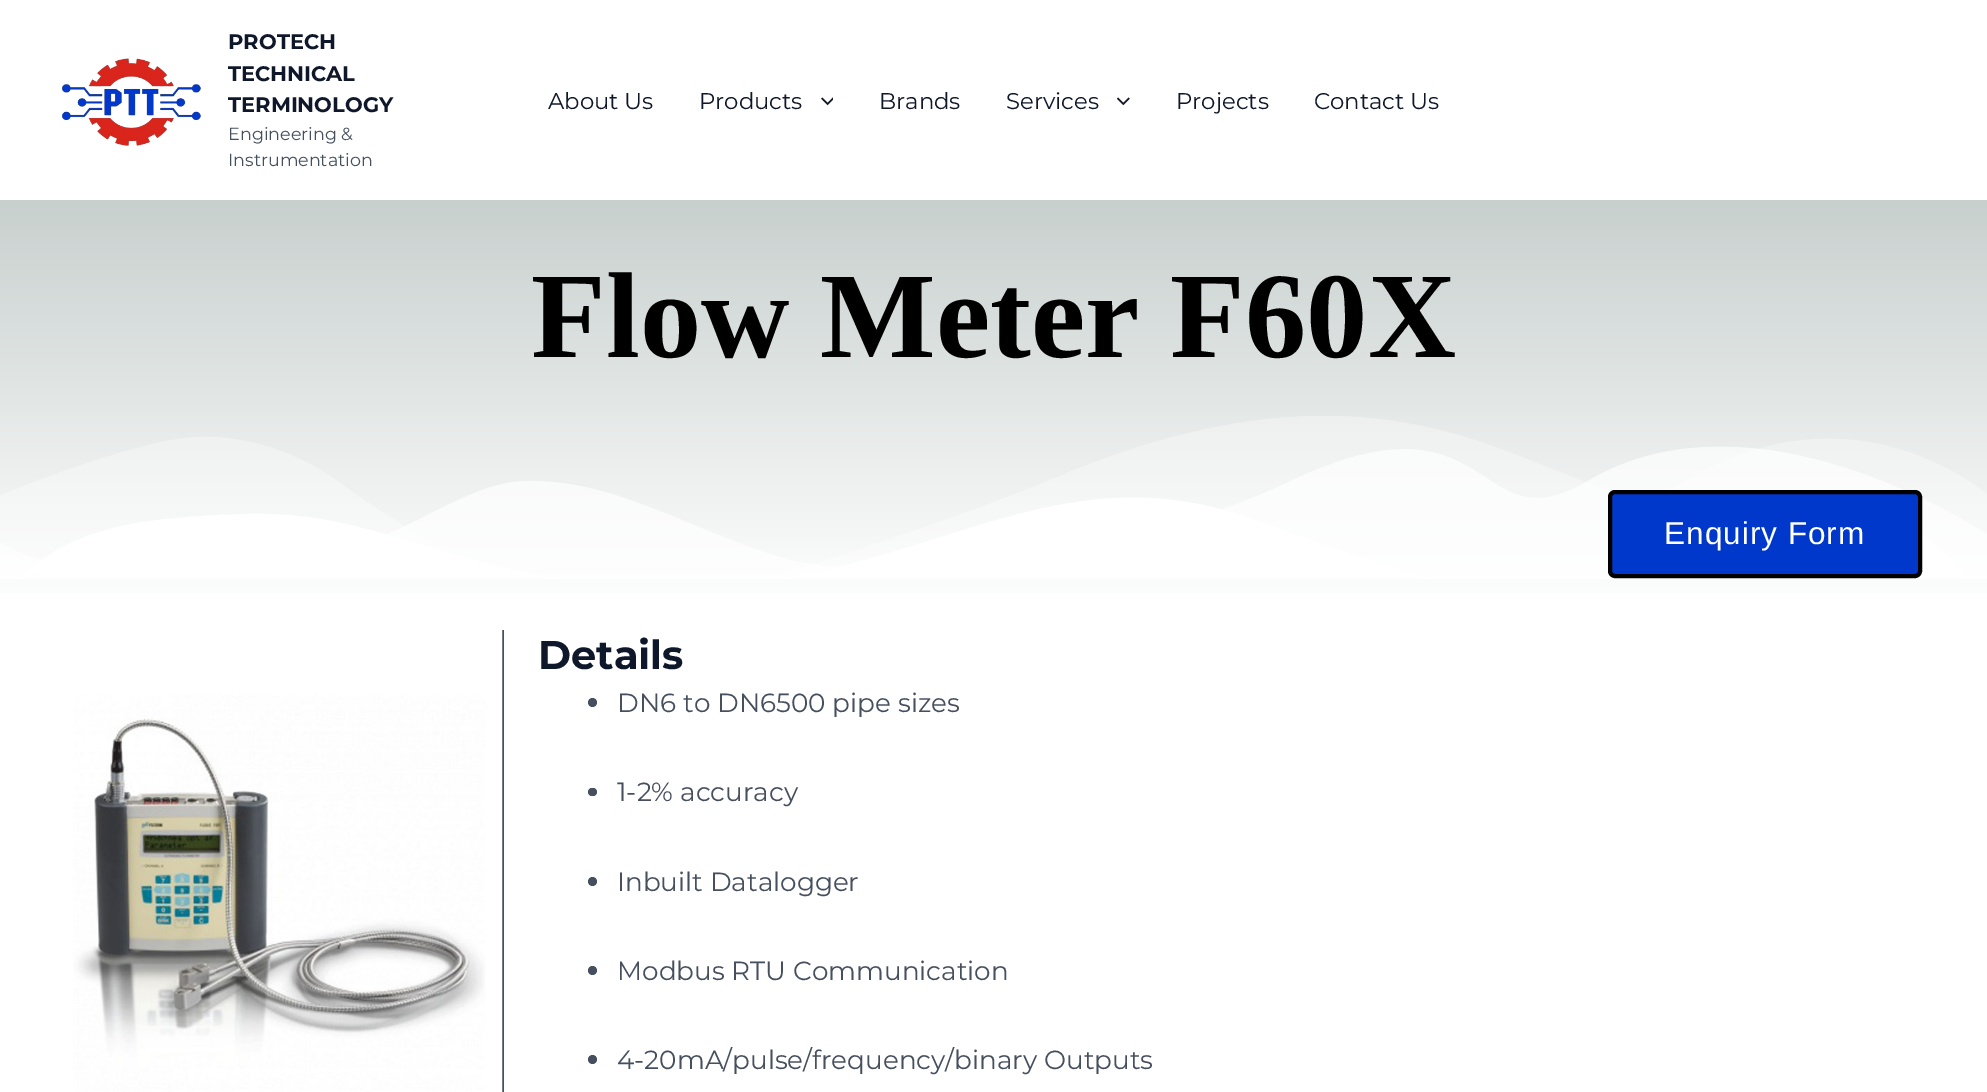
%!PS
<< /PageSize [1987 1092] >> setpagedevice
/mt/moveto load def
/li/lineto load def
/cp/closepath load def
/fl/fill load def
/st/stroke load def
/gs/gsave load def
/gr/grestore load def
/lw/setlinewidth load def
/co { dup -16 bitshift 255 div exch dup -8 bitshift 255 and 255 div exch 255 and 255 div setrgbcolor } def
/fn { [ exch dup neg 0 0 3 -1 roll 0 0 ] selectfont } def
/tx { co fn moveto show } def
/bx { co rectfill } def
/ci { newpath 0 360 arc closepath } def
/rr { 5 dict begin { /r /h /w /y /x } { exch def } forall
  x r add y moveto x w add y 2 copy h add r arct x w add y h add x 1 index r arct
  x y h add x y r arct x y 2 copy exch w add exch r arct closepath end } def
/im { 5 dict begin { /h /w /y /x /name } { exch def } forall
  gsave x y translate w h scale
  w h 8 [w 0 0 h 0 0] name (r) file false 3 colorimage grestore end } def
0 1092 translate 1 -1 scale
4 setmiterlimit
0 0 1987 1092 16#FFFFFF bx
(media/1.raw) 62 58 139 88 im
(media/2.raw) 821 97 12 9 im
(media/3.raw) 1117 97 13 9 im
gs 0 200 mt 1987 200 li 1987 594 li 0 594 li cp clip newpath
<< /ShadingType 2 /ColorSpace /DeviceRGB /Coords [994 0 994 613] /Extend [true true] /Function << /FunctionType 2 /Domain [0 1] /C0 [.678 .725 .714] /C1 [1 1 1] /N 1 >> >> shfill gr
(media/4.raw) 0 416 1987 163 im
16#0038CC co
1610 492 310 84 5 rr gs fl gr
16#000000 co
4 lw
st
502 630 2 462 16#454F5E bx
(media/5.raw) 73 630 430 462 im
592.5 702.5 4.5 ci fl
588 788 9 8 4 rr fl
592.5 881.5 4.5 ci fl
592.5 970.5 4.5 ci fl
592.5 1059.5 4.5 ci fl
(PROTECH) 228 49 /Montserrat-Bold 21 16#0F172A tx
(TECHNICAL) 228 81 /Montserrat-Bold 21 16#0F172A tx
(TERMINOLOGY) 228 112 /Montserrat-Bold 21 16#0F172A tx
(Engineering &) 228 140 /Montserrat-Regular 17.5 16#454F5E tx
(Instrumentation) 228 166 /Montserrat-Regular 17.5 16#454F5E tx
(About Us) 548 109 /Montserrat-Regular 22.75 16#0F172A tx
(Products) 699 109 /Montserrat-Regular 22.75 16#0F172A tx
(Brands) 879 109 /Montserrat-Regular 22.75 16#0F172A tx
(Services) 1006 109 /Montserrat-Regular 22.75 16#0F172A tx
(Projects) 1176 109 /Montserrat-Regular 22.75 16#0F172A tx
(Contact Us) 1314 109 /Montserrat-Regular 22.75 16#0F172A tx
(Flow Meter F60X) 531 357 /LiberationSerif-Bold 122.5 16#000000 tx
/LiberationSans-Regular 31.5 fn
16#FFFFFF co
1664 544 mt 1 0 (Enquiry Form) ashow
(Details) 538 669 /Montserrat-Bold 40 16#0F172A tx
(DN6 to DN6500 pipe sizes) 617 712 /Montserrat-Regular 26.25 16#454F5E tx
(1-2% accuracy) 617 801 /Montserrat-Regular 26.25 16#454F5E tx
(Inbuilt Datalogger) 617 891 /Montserrat-Regular 26.25 16#454F5E tx
(Modbus RTU Communication) 617 980 /Montserrat-Regular 26.25 16#454F5E tx
(4-20mA/pulse/frequency/binary Outputs) 617 1069 /Montserrat-Regular 26.25 16#454F5E tx
showpage
